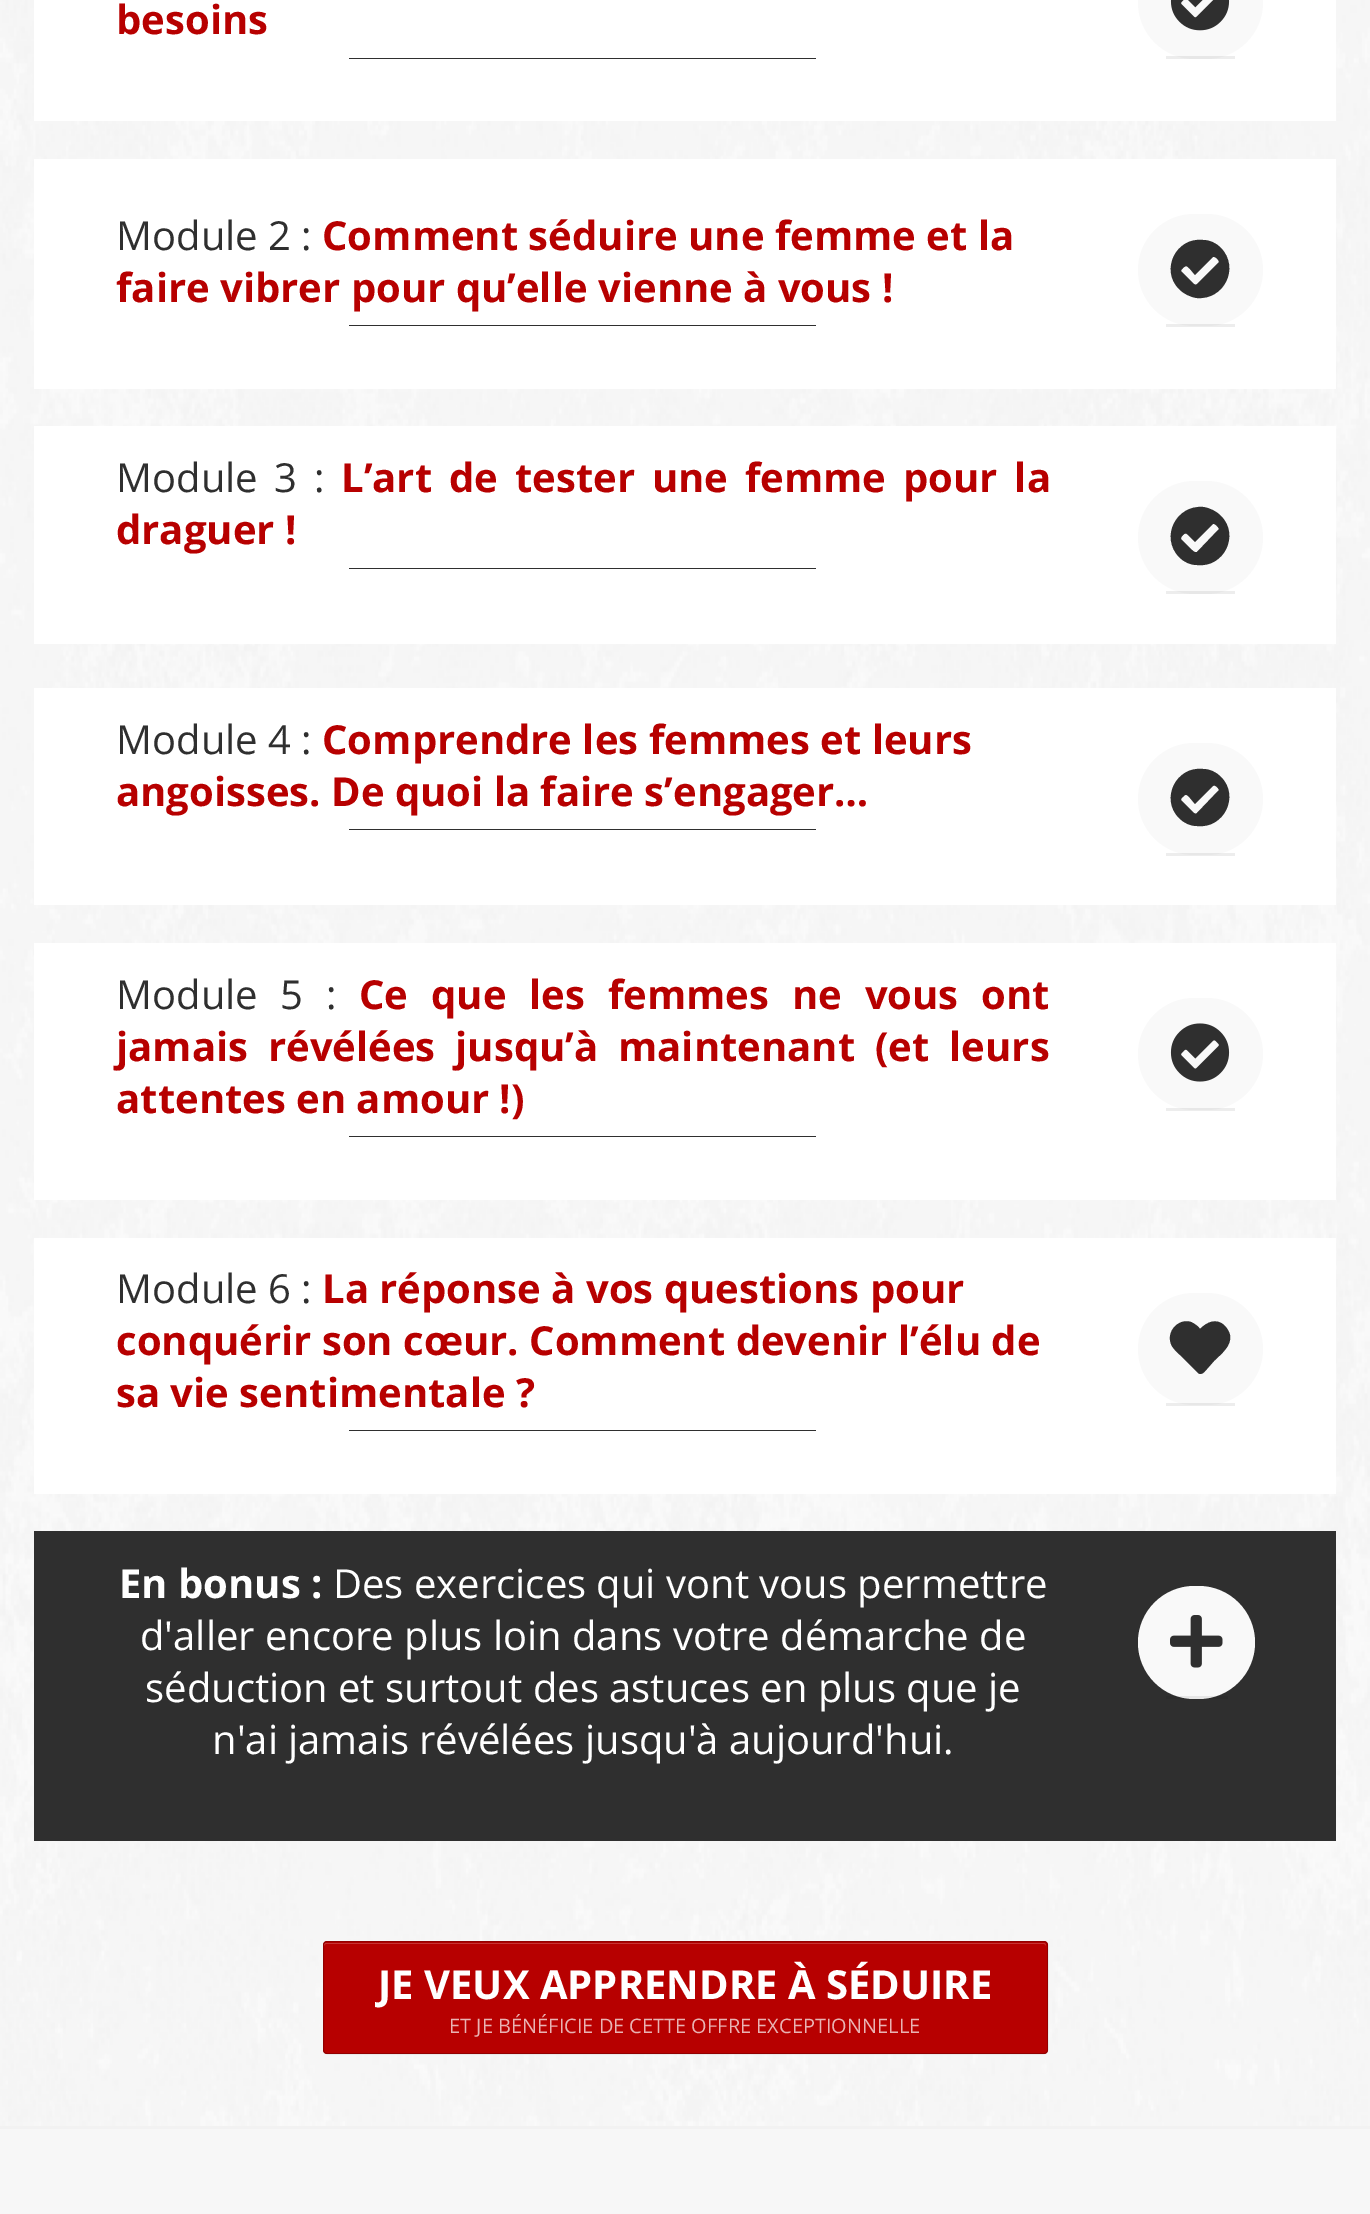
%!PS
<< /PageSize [1370 2214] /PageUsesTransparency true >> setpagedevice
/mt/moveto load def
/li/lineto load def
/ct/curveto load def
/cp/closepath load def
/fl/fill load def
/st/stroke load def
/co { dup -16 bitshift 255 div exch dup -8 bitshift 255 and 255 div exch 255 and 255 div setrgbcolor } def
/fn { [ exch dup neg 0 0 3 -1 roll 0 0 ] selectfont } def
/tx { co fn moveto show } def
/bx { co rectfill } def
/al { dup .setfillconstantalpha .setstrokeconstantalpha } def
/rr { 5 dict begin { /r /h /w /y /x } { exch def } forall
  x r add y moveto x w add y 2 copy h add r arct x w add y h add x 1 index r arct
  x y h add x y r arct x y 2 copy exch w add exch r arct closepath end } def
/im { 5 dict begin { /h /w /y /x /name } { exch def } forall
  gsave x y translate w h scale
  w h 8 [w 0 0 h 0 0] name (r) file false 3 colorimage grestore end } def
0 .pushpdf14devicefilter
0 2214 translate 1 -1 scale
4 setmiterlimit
0 0 1370 2214 16#F2F2F2 bx
(media/1.raw) 0 0 1370 2126 im
34 0 1302 121 16#FFFFFF bx
349 58 467 1 16#2F2F2F bx
16#F9F9F9 co
1138 -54 125 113 56.5 rr fl
0.07 al
1166 56 69 3 16#000000 bx
1 al
(media/2.raw) 1170 0 60 31 im
34 159 1302 230 16#FFFFFF bx
349 325 467 1 16#2F2F2F bx
16#F9F9F9 co
1138 214 125 112 56 rr fl
0.07 al
1166 324 69 3 16#000000 bx
1 al
16#2F2F2F co
1221 248 mt 1240 268 1224 300 1197 298 ct 1190 297 1184 294 1179 289 ct 1160 270 1176 237 1203 240 ct 1210 240 1216 243 1221 248 ct cp 1197 284 mt 1219 262 li 1219 260 1215 256 1213 257 ct 1195 275 li 1190 269 li 1187 266 1186 265 1183 268 ct 1182 269 1181 270 1181 271 ct 1192 282 li 1193 283 1195 286 1197 284 ct cp fl
34 426 1302 218 16#FFFFFF bx
349 568 467 1 16#2F2F2F bx
16#F9F9F9 co
1138 481 125 113 56.5 rr fl
0.07 al
1166 591 69 3 16#000000 bx
1 al
16#2F2F2F co
1221 516 mt 1240 535 1224 568 1197 565 ct 1190 565 1184 562 1179 557 ct 1160 537 1176 505 1203 507 ct 1210 508 1216 511 1221 516 ct cp 1197 552 mt 1219 529 li 1219 528 1215 523 1213 524 ct 1195 542 li 1190 537 li 1187 534 1186 532 1183 535 ct 1182 536 1181 537 1181 539 ct 1192 550 li 1193 551 1195 553 1197 552 ct cp fl
34 688 1302 217 16#FFFFFF bx
349 829 467 1 16#2F2F2F bx
16#F9F9F9 co
1138 743 125 112 56 rr fl
0.07 al
1166 853 69 3 16#000000 bx
1 al
16#2F2F2F co
1221 777 mt 1240 796 1224 829 1197 826 ct 1190 826 1184 823 1179 818 ct 1160 799 1176 766 1203 769 ct 1210 769 1216 772 1221 777 ct cp 1197 813 mt 1219 790 li 1219 789 1215 784 1213 786 ct 1195 804 li 1190 798 li 1187 795 1186 793 1183 797 ct 1182 797 1181 799 1181 800 ct 1192 811 li 1193 812 1195 815 1197 813 ct cp fl
34 943 1302 257 16#FFFFFF bx
349 1136 467 1 16#2F2F2F bx
16#F9F9F9 co
1138 998 125 112 56 rr fl
0.07 al
1166 1108 69 3 16#000000 bx
1 al
(media/3.raw) 1170 1023 60 59 im
34 1238 1302 256 16#FFFFFF bx
349 1430 467 1 16#2F2F2F bx
16#F9F9F9 co
1138 1293 125 112 56 rr fl
0.07 al
1166 1403 69 3 16#000000 bx
1 al
16#2F2F2F co
1224 1325 mt 1227 1328 1229 1331 1230 1335 ct 1232 1346 1221 1354 1214 1361 ct 1207 1369 li 1205 1371 1202 1376 1198 1373 ct 1186 1361 li 1182 1356 1173 1350 1171 1344 ct 1166 1331 1179 1318 1191 1322 ct 1195 1324 1198 1326 1200 1329 ct 1207 1322 1216 1318 1224 1325 ct cp fl
34 1531 1302 310 16#2F2F2F bx
16#F9F9F9 co
1138 1586 117 113 56.5 rr fl
0.07 al
1166 1696 62 3 16#000000 bx
1 al
(media/4.raw) 1170 1615 53 53 im
16#B70000 co
323 1941 725 113 4 rr fl
16#C53333 co
326 1944 mt 1044 1944 li 1045 1944 1046 1945 1046 1946 ct 1046 1944 1045 1943 1044 1943 ct 326 1943 li 325 1943 324 1944 324 1946 ct 324 1945 325 1944 326 1944 ct cp fl
0.2 al
16#000000 co
323.5 1941.5 724 112 3.5 rr st
1 al
0 2129 1370 85 16#F7F7F7 bx
(besoins) 116 34 /OpenSans-Bold 40 16#B70000 tx
(Module 2 :) 116 250 /OpenSans-Regular 40 16#2F2F2F tx
(Comment séduire une femme et la) 322 250 /OpenSans-Bold 40 16#B70000 tx
(faire vibrer pour qu’elle vienne à vous !) 116 302 /OpenSans-Bold 40 16#B70000 tx
/OpenSans-Regular 40 fn
16#2F2F2F co
116 492 mt 6.5 0 32 (Module 3 :) widthshow
/OpenSans-Bold 40 fn
16#B70000 co
341 492 mt 6.5 0 32 (L’art de tester une femme pour la) widthshow
(draguer !) 116 544 /OpenSans-Bold 40 16#B70000 tx
(Module 4 :) 116 754 /OpenSans-Regular 40 16#2F2F2F tx
(Comprendre les femmes et leurs) 322 754 /OpenSans-Bold 40 16#B70000 tx
(angoisses. De quoi la faire s’engager…) 116 806 /OpenSans-Bold 40 16#B70000 tx
/OpenSans-Regular 40 fn
16#2F2F2F co
116 1009 mt 12.5 0 32 (Module 5 :) widthshow
/OpenSans-Bold 40 fn
16#B70000 co
359 1009 mt 12.5 0 32 (Ce que les femmes ne vous ont) widthshow
116 1061 mt 9.5 0 32 (jamais révélées jusqu’à maintenant \(et leurs) widthshow
(attentes en amour !\)) 116 1113 /OpenSans-Bold 40 16#B70000 tx
(Module 6 :) 116 1303 /OpenSans-Regular 40 16#2F2F2F tx
(La réponse à vos questions pour) 322 1303 /OpenSans-Bold 40 16#B70000 tx
(conquérir son cœur. Comment devenir l’élu de) 116 1355 /OpenSans-Bold 40 16#B70000 tx
(sa vie sentimentale ?) 116 1407 /OpenSans-Bold 40 16#B70000 tx
(En bonus :) 119 1598 /OpenSans-Bold 40 16#FFFFFF tx
(Des exercices qui vont vous permettre) 333 1598 /OpenSans-Regular 40 16#FFFFFF tx
(d'aller encore plus loin dans votre démarche de) 140 1650 /OpenSans-Regular 40 16#FFFFFF tx
(séduction et surtout des astuces en plus que je) 145 1702 /OpenSans-Regular 40 16#FFFFFF tx
(n'ai jamais révélées jusqu'à aujourd'hui.) 212 1754 /OpenSans-Regular 40 16#FFFFFF tx
(JE VEUX APPRENDRE À SÉDUIRE) 378 1999 /OpenSans-Bold 40 16#FFFFFF tx
(ET JE BÉNÉFICIE DE CETTE OFFRE EXCEPTIONNELLE) 449 2033 /OpenSans-Regular 20 16#E9B3B3 tx
.poppdf14devicefilter showpage
